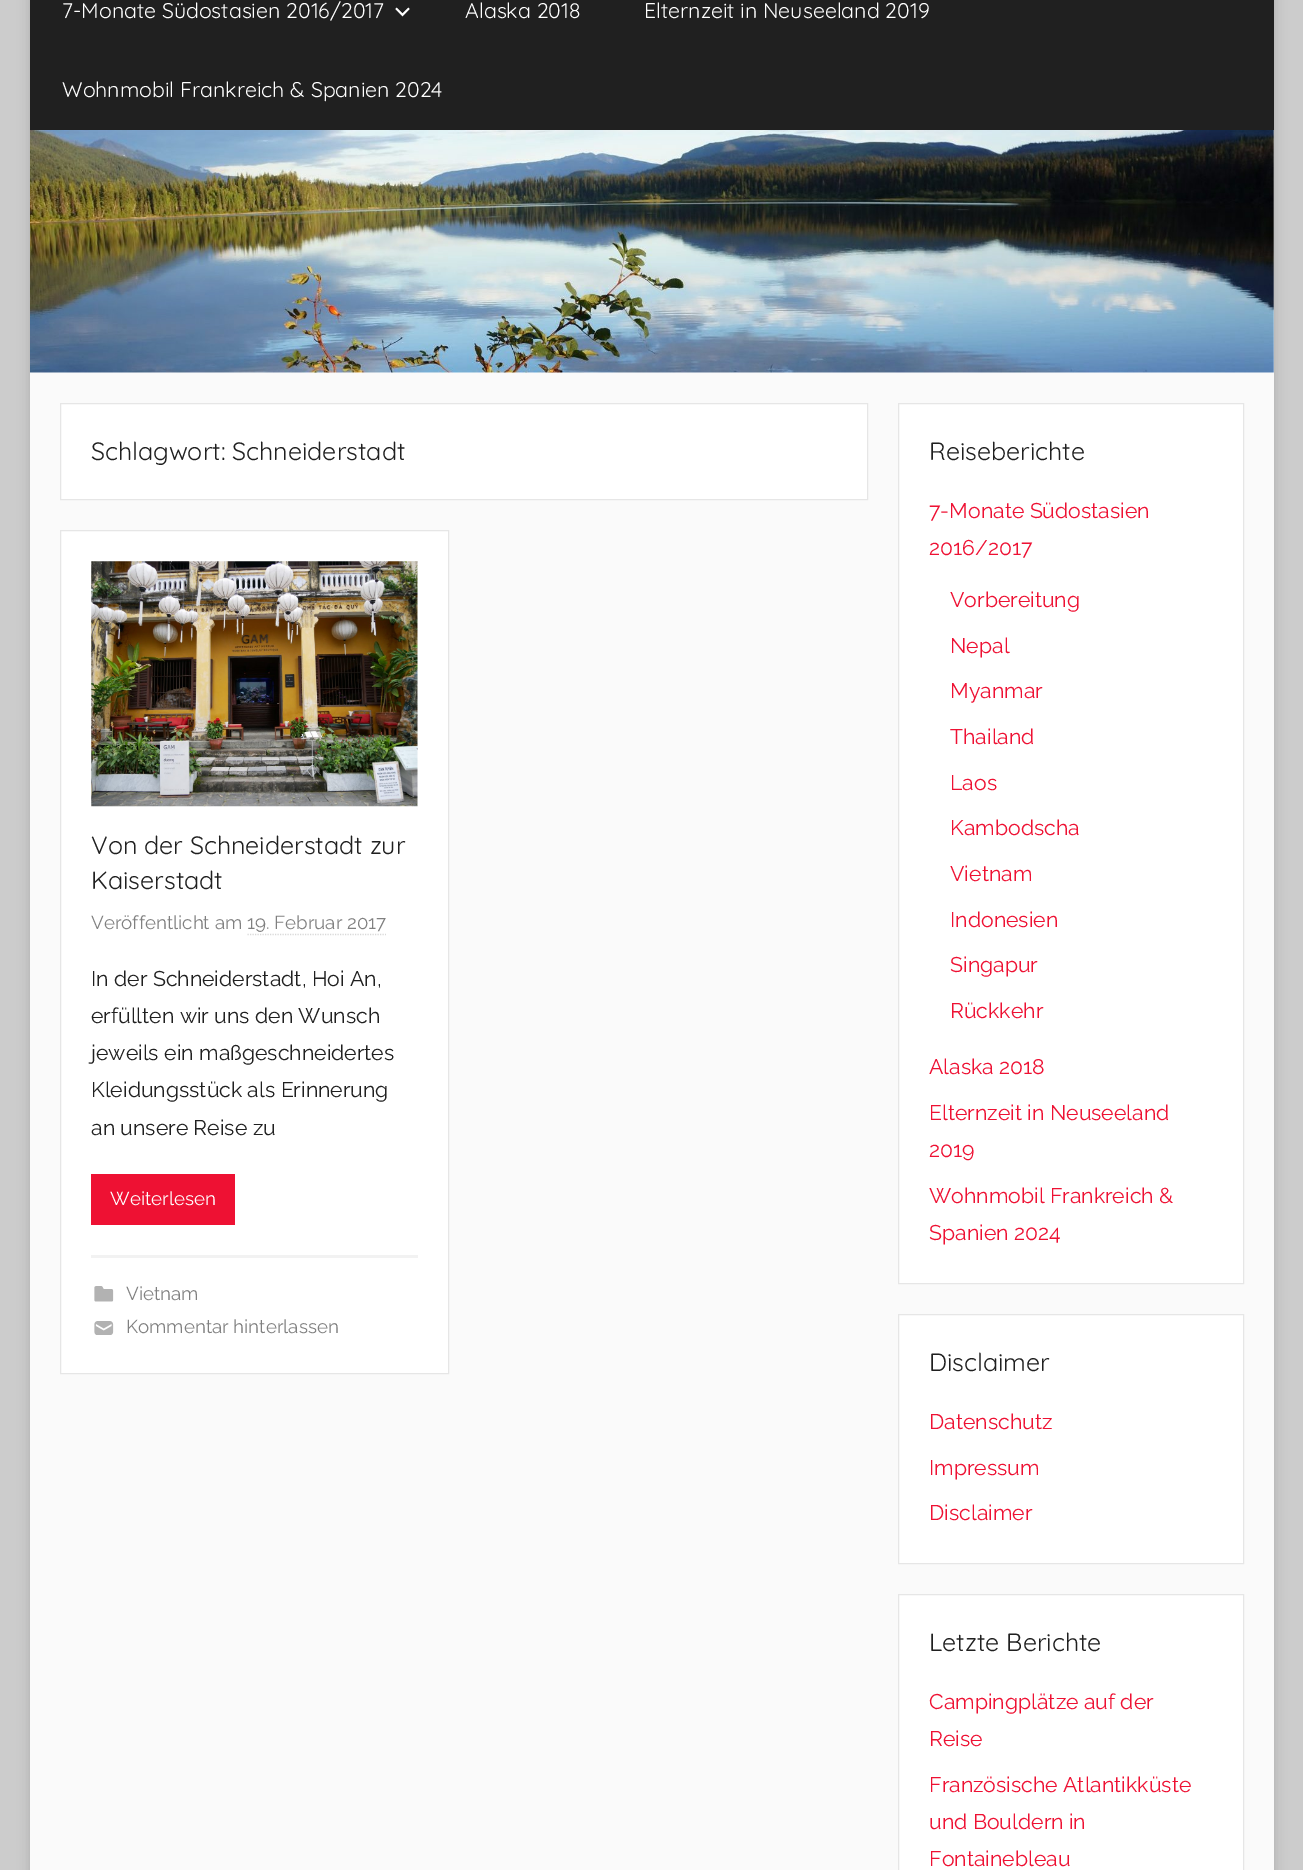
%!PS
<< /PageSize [1303 1870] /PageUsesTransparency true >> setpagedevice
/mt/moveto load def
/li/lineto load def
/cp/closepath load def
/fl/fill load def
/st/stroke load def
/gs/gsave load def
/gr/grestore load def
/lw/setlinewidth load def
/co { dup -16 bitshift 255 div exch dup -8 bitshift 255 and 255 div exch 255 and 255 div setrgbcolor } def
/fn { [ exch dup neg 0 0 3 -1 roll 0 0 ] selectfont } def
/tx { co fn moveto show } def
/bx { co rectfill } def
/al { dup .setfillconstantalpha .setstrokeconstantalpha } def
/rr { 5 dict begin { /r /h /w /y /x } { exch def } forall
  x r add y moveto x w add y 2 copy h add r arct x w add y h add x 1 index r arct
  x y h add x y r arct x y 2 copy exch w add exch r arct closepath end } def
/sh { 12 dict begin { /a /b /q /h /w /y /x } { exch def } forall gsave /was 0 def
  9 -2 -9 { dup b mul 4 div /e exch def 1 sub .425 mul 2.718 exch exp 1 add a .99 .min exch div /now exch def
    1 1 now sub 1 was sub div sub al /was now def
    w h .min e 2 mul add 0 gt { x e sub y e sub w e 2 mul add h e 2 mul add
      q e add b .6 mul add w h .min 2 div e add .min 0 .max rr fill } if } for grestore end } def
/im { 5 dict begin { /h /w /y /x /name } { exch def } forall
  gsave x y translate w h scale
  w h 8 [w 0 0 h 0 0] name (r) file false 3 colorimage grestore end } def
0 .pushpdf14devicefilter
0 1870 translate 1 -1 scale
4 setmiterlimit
0 0 1303 1870 16#CCCCCC bx
16#000000 co
30 -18 1244 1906 0 6 .15 sh
30 373 1244 1497 16#FAFAFA bx
30 130 1244 243 16#FFFFFF bx
30 0 1244 130 16#202020 bx
(media/1.raw) 395 7 15 10 im
(media/2.raw) 30 130 1244 243 im
16#FFFFFF co
60.5 403.5 mt 867.5 403.5 li 867.5 499.5 li 60.5 499.5 li cp gs fl gr
16#E6E6E6 co
st
16#FFFFFF co
60.5 530.5 mt 448.5 530.5 li 448.5 1373.5 li 60.5 1373.5 li cp gs fl gr
16#E6E6E6 co
st
(media/3.raw) 91 561 327 246 im
16#D9D9D9 co
1.2 lw
[1.25 1.25] 0 setdash
247.5 934.5 mt 386 934.5 li st
91 1174 144 51 16#EE1133 bx
91 1255 327 3 16#F2F2F2 bx
(media/4.raw) 94 1286 20 16 im
(media/5.raw) 94 1321 20 14 im
16#FFFFFF co
898.5 403.5 mt 1243.5 403.5 li 1243.5 1283.5 li 898.5 1283.5 li cp gs fl gr
16#E6E6E6 co
1 lw
[] 0 setdash
st
16#FFFFFF co
898.5 1314.5 mt 1243.5 1314.5 li 1243.5 1563.5 li 898.5 1563.5 li cp gs fl gr
16#E6E6E6 co
st
16#FFFFFF co
898.5 1594.5 mt 1243.5 1594.5 li 1243.5 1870.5 li 898.5 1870.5 li cp gs fl gr
16#E6E6E6 co
st
(7-Monate Südostasien 2016/2017) 62 18 /Quicksand-Regular 21.25 16#FFFFFF tx
(Alaska 2018) 465 18 /Quicksand-Regular 21.25 16#FFFFFF tx
(Elternzeit in Neuseeland 2019) 644 18 /Quicksand-Regular 21.25 16#FFFFFF tx
(Wohnmobil Frankreich & Spanien 2024) 62 97 /Quicksand-Regular 21.25 16#FFFFFF tx
(Schlagwort: Schneiderstadt) 91 460 /Quicksand-Regular 25 16#202020 tx
(Von der Schneiderstadt zur) 91 854 /Quicksand-Regular 25 16#202020 tx
(Kaiserstadt) 91 889 /Quicksand-Regular 25 16#202020 tx
(Veröffentlicht am 19. Februar 2017) 91 929 /Raleway-Regular 18.75 16#808080 tx
(In der Schneiderstadt, Hoi An,) 91 986 /Raleway-Regular 21.25 16#202020 tx
(erfüllten wir uns den Wunsch) 91 1023 /Raleway-Regular 21.25 16#202020 tx
(jeweils ein maßgeschneidertes) 91 1060 /Raleway-Regular 21.25 16#202020 tx
(Kleidungsstück als Erinnerung) 91 1097 /Raleway-Regular 21.25 16#202020 tx
(an unsere Reise zu) 91 1135 /Raleway-Regular 21.25 16#202020 tx
(Weiterlesen) 110 1205 /Raleway-Regular 18.75 16#FFFFFF tx
(Vietnam) 126 1300 /Raleway-Regular 18.75 16#808080 tx
(Kommentar hinterlassen) 126 1333 /Raleway-Regular 18.75 16#808080 tx
(Reiseberichte) 929 460 /Quicksand-Regular 25 16#202020 tx
(7-Monate Südostasien) 929 518 /Raleway-Regular 21.25 16#EE1133 tx
(2016/2017) 929 555 /Raleway-Regular 21.25 16#EE1133 tx
(Vorbereitung) 950 607 /Raleway-Regular 21.25 16#EE1133 tx
(Nepal) 950 653 /Raleway-Regular 21.25 16#EE1133 tx
(Myanmar) 950 698 /Raleway-Regular 21.25 16#EE1133 tx
(Thailand) 950 744 /Raleway-Regular 21.25 16#EE1133 tx
(Laos) 950 790 /Raleway-Regular 21.25 16#EE1133 tx
(Kambodscha) 950 835 /Raleway-Regular 21.25 16#EE1133 tx
(Vietnam) 950 881 /Raleway-Regular 21.25 16#EE1133 tx
(Indonesien) 950 927 /Raleway-Regular 21.25 16#EE1133 tx
(Singapur) 950 972 /Raleway-Regular 21.25 16#EE1133 tx
(Rückkehr) 950 1018 /Raleway-Regular 21.25 16#EE1133 tx
(Alaska 2018) 929 1074 /Raleway-Regular 21.25 16#EE1133 tx
(Elternzeit in Neuseeland) 929 1120 /Raleway-Regular 21.25 16#EE1133 tx
(2019) 929 1157 /Raleway-Regular 21.25 16#EE1133 tx
(Wohnmobil Frankreich &) 929 1203 /Raleway-Regular 21.25 16#EE1133 tx
(Spanien 2024) 929 1240 /Raleway-Regular 21.25 16#EE1133 tx
(Disclaimer) 929 1371 /Quicksand-Regular 25 16#202020 tx
(Datenschutz) 929 1429 /Raleway-Regular 21.25 16#EE1133 tx
(Impressum) 929 1475 /Raleway-Regular 21.25 16#EE1133 tx
(Disclaimer) 929 1520 /Raleway-Regular 21.25 16#EE1133 tx
(Letzte Berichte) 929 1651 /Quicksand-Regular 25 16#202020 tx
(Campingplätze auf der) 929 1709 /Raleway-Regular 21.25 16#EE1133 tx
(Reise) 929 1746 /Raleway-Regular 21.25 16#EE1133 tx
(Französische Atlantikküste) 929 1792 /Raleway-Regular 21.25 16#EE1133 tx
(und Bouldern in) 929 1829 /Raleway-Regular 21.25 16#EE1133 tx
(Fontainebleau) 929 1866 /Raleway-Regular 21.25 16#EE1133 tx
.poppdf14devicefilter showpage
